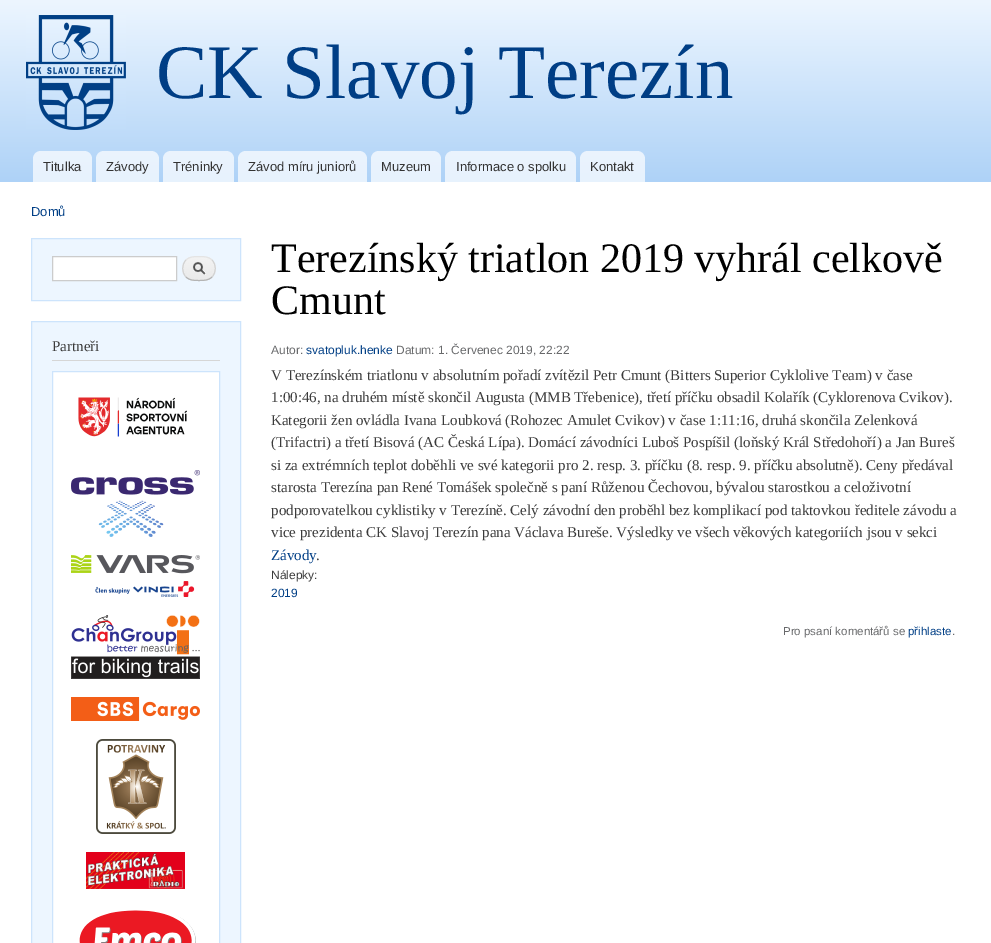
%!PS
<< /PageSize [991 943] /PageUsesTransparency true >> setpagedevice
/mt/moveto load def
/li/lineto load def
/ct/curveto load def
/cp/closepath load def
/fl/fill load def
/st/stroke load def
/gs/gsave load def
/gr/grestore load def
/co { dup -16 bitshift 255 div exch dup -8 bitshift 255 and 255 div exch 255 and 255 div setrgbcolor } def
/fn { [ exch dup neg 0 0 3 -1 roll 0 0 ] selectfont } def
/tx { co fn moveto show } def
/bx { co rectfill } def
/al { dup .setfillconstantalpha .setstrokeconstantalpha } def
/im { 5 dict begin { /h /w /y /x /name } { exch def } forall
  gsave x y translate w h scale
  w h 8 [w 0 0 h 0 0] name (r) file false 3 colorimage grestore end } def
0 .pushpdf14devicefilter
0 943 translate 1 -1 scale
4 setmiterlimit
0 0 991 943 16#FFFFFF bx
gs 0 0 mt 991 0 li 991 182 li 0 182 li cp clip newpath
<< /ShadingType 2 /ColorSpace /DeviceRGB /Coords [496 0 496 182] /Extend [true true] /Function << /FunctionType 2 /Domain [0 1] /C0 [.929 .965 1] /C1 [.682 .824 .969] /N 1 >> >> shfill gr
(media/1.raw) 26 15 100 115 im
0.7 al
41 151 mt 84 151 li 88.5 151 92 154.5 92 159 ct 92 182 li 33 182 li 33 159 li 33 154.5 36.5 151 41 151 ct cp fl
104 151 mt 151 151 li 155.5 151 159 154.5 159 159 ct 159 182 li 96 182 li 96 159 li 96 154.5 99.5 151 104 151 ct cp fl
171 151 mt 226 151 li 230.5 151 234 154.5 234 159 ct 234 182 li 163 182 li 163 159 li 163 154.5 166.5 151 171 151 ct cp fl
246 151 mt 359 151 li 363.5 151 367 154.5 367 159 ct 367 182 li 238 182 li 238 159 li 238 154.5 241.5 151 246 151 ct cp fl
379 151 mt 433 151 li 437.5 151 441 154.5 441 159 ct 441 182 li 371 182 li 371 159 li 371 154.5 374.5 151 379 151 ct cp fl
453 151 mt 568 151 li 572.5 151 576 154.5 576 159 ct 576 182 li 445 182 li 445 159 li 445 154.5 448.5 151 453 151 ct cp fl
588 151 mt 637 151 li 641.5 151 645 154.5 645 159 ct 645 182 li 580 182 li 580 159 li 580 154.5 583.5 151 588 151 ct cp fl
1 al
16#EDF6FF co
31.5 238.5 mt 240.5 238.5 li 240.5 300.5 li 31.5 300.5 li cp gs fl gr
16#CDE4FC co
st
16#FFFFFF co
52.5 256.5 mt 176.5 256.5 li 176.5 280.5 li 52.5 280.5 li cp gs fl gr
16#CCCCCC co
st
(media/2.raw) 182 257 34 24 im
16#E4E4E4 co
186 260 mt 189.5 256.5 194 256.5 199 256.5 ct 204 256.5 208.5 256.5 212 260 ct st
16#D2D2D2 co
212 260 mt 216.5 264.5 216.5 272.5 212 277 ct st
16#B4B4B4 co
212 277 mt 208.5 280.5 204 280.5 199 280.5 ct 194 280.5 189.5 280.5 186 277 ct st
16#D2D2D2 co
186 277 mt 181.5 272.5 181.5 264.5 186 260 ct st
16#EDF6FF co
31.5 321.5 mt 240.5 321.5 li 240.5 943.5 li 31.5 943.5 li cp gs fl gr
16#CDE4FC co
st
52 360 168 1 16#D6D6D6 bx
16#FFFFFF co
52.5 371.5 mt 219.5 371.5 li 219.5 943.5 li 52.5 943.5 li cp gs fl gr
16#CDE4FC co
st
(media/3.raw) 78 397 109 40 im
(media/4.raw) 71 470 129 67 im
(media/5.raw) 71 555 129 42 im
(media/6.raw) 71 615 129 64 im
(media/7.raw) 71 697 129 24 im
(media/8.raw) 96 739 80 95 im
(media/9.raw) 86 852 99 37 im
(media/10.raw) 79 910 117 33 im
(CK Slavoj Terezín) 156 98 /LiberationSerif-Regular 77 16#003E85 tx
(Titulka) 43 171 /LiberationSans-Regular 13 16#333333 tx
(Závody) 106 171 /LiberationSans-Regular 13 16#333333 tx
(Tréninky) 173 171 /LiberationSans-Regular 13 16#333333 tx
(Závod míru juniorů) 248 171 /LiberationSans-Regular 13 16#333333 tx
(Muzeum) 381 171 /LiberationSans-Regular 13 16#333333 tx
(Informace o spolku) 456 171 /LiberationSans-Regular 13 16#333333 tx
(Kontakt) 590 171 /LiberationSans-Regular 13 16#333333 tx
(Domů) 31 216 /LiberationSans-Regular 13 16#003E85 tx
(Partneři) 52 351 /LiberationSerif-Regular 15 16#3B3B3B tx
(Terezínský triatlon 2019 vyhrál celkově) 271 272 /LiberationSerif-Regular 42 16#000000 tx
(Cmunt) 271 314 /LiberationSerif-Regular 42 16#000000 tx
(Autor:) 271 354 /LiberationSans-Regular 12 16#68696B tx
(svatopluk.henke) 306 354 /LiberationSans-Regular 12 16#003E85 tx
(Datum: 1. Červenec 2019, 22:22) 396 354 /LiberationSans-Regular 12 16#68696B tx
(V Terezínském triatlonu v absolutním pořadí zvítězil Petr Cmunt \(Bitters Superior Cyklolive Team\) v čase) 271 380 /LiberationSerif-Regular 15 16#3B3B3B tx
(1:00:46, na druhém místě skončil Augusta \(MMB Třebenice\), třetí příčku obsadil Kolařík \(Cyklorenova Cvikov\).) 271 402 /LiberationSerif-Regular 15 16#3B3B3B tx
(Kategorii žen ovládla Ivana Loubková \(Rohozec Amulet Cvikov\) v čase 1:11:16, druhá skončila Zelenková) 271 425 /LiberationSerif-Regular 15 16#3B3B3B tx
(\(Trifactri\) a třetí Bisová \(AC Česká Lípa\). Domácí závodníci Luboš Pospíšil \(loňský Král Středohoří\) a Jan Bureš) 271 447 /LiberationSerif-Regular 15 16#3B3B3B tx
(si za extrémních teplot doběhli ve své kategorii pro 2. resp. 3. příčku \(8. resp. 9. příčku absolutně\). Ceny předával) 271 470 /LiberationSerif-Regular 15 16#3B3B3B tx
(starosta Terezína pan René Tomášek společně s paní Růženou Čechovou, bývalou starostkou a celoživotní) 271 492 /LiberationSerif-Regular 15 16#3B3B3B tx
(podporovatelkou cyklistiky v Terezíně. Celý závodní den proběhl bez komplikací pod taktovkou ředitele závodu a) 271 515 /LiberationSerif-Regular 15 16#3B3B3B tx
(vice prezidenta CK Slavoj Terezín pana Václava Bureše. Výsledky ve všech věkových kategoriích jsou v sekci) 271 537 /LiberationSerif-Regular 15 16#3B3B3B tx
(Závody) 271 560 /LiberationSerif-Regular 15 16#003E85 tx
(.) 316 560 /LiberationSerif-Regular 15 16#3B3B3B tx
(Nálepky:) 271 579 /LiberationSans-Regular 12 16#3B3B3B tx
(2019) 271 597 /LiberationSans-Regular 12 16#003E85 tx
(Pro psaní komentářů se) 783 635 /LiberationSans-Regular 11.5 16#68696B tx
(přihlaste) 908 635 /LiberationSans-Regular 11.5 16#003E85 tx
(.) 952 635 /LiberationSans-Regular 11.5 16#68696B tx
.poppdf14devicefilter showpage
